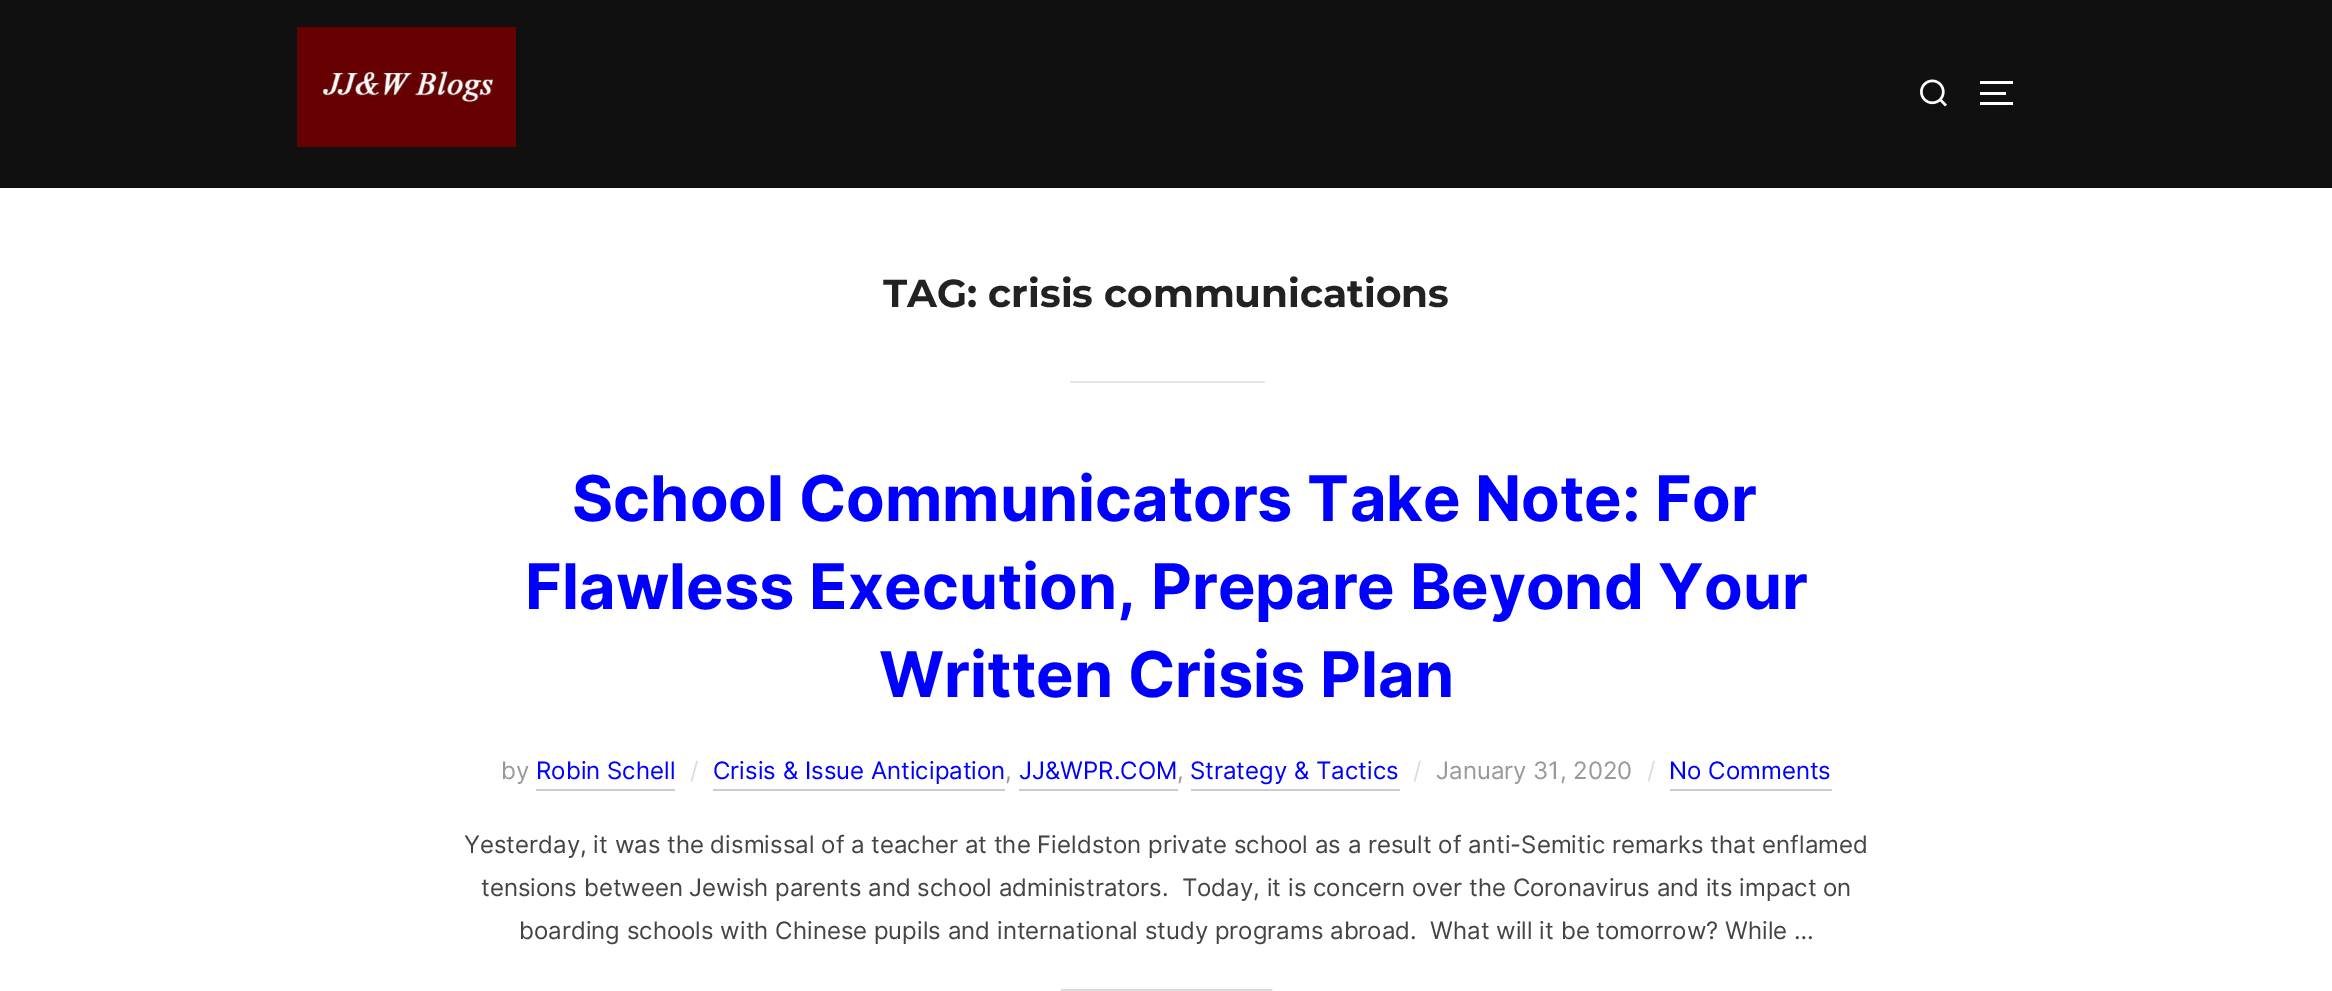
%!PS
<< /PageSize [2332 991] >> setpagedevice
/lw/setlinewidth load def
/co { dup -16 bitshift 255 div exch dup -8 bitshift 255 and 255 div exch 255 and 255 div setrgbcolor } def
/fn { [ exch dup neg 0 0 3 -1 roll 0 0 ] selectfont } def
/tx { co fn moveto show } def
/bx { co rectfill } def
/im { 5 dict begin { /h /w /y /x /name } { exch def } forall
  gsave x y translate w h scale
  w h 8 [w 0 0 h 0 0] name (r) file false 3 colorimage grestore end } def
0 991 translate 1 -1 scale
4 setmiterlimit
0 0 2332 991 16#FFFFFF bx
0 0 2332 188 16#101010 bx
(media/1.raw) 297 27 219 120 im
(media/2.raw) 1920 79 27 28 im
1980 81 33 3 16#FFFFFF bx
1980 92 26 3 16#FFFFFF bx
1980 102 33 3 16#FFFFFF bx
1070 381 195 2 16#E6E6E6 bx
536 789 139 2 16#CCCCCC bx
713 789 292 2 16#CCCCCC bx
1019 789 159 2 16#CCCCCC bx
1191 789 209 2 16#CCCCCC bx
1670 789 162 2 16#CCCCCC bx
16#DBDBDB co
3 lw
1062.5 990.5 208 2 rectstroke
(TAG: crisis communications) 883 307 /Montserrat-Bold 39 16#222222 tx
(School Communicators Take Note: For) 572 521 /Inter-Bold 63 16#0000FF tx
(Flawless Execution, Prepare Beyond Your) 525 609 /Inter-Bold 63 16#0000FF tx
(Written Crisis Plan) 879 697 /Inter-Bold 63 16#0000FF tx
(by) 501 779 /Inter-Regular 24 16#999999 tx
(Robin Schell) 536 779 /Inter-Regular 24 16#0000FF tx
(/) 690 779 /Inter-Regular 24 16#DBDDDD tx
(Crisis & Issue Anticipation) 713 779 /Inter-Regular 24 16#0000FF tx
(,) 1005 779 /Inter-Regular 24 16#999999 tx
(JJ&WPR.COM) 1019 779 /Inter-Regular 24 16#0000FF tx
(,) 1177 779 /Inter-Regular 24 16#999999 tx
(Strategy & Tactics) 1190 779 /Inter-Regular 24 16#0000FF tx
(/) 1413 779 /Inter-Regular 24 16#DBDDDD tx
(January 31, 2020) 1436 779 /Inter-Regular 24 16#999999 tx
(/) 1647 779 /Inter-Regular 24 16#DBDDDD tx
(No Comments) 1669 779 /Inter-Regular 24 16#0000FF tx
(Yesterday, it was the dismissal of a teacher at the Fieldston private school as a result of anti-Semitic remarks that enflamed) 464 853 /Inter-Regular 24 16#444444 tx
(tensions between Jewish parents and school administrators.  Today, it is concern over the Coronavirus and its impact on) 481 896 /Inter-Regular 24 16#444444 tx
(boarding schools with Chinese pupils and international study programs abroad.  What will it be tomorrow? While …) 519 939 /Inter-Regular 24 16#444444 tx
showpage
